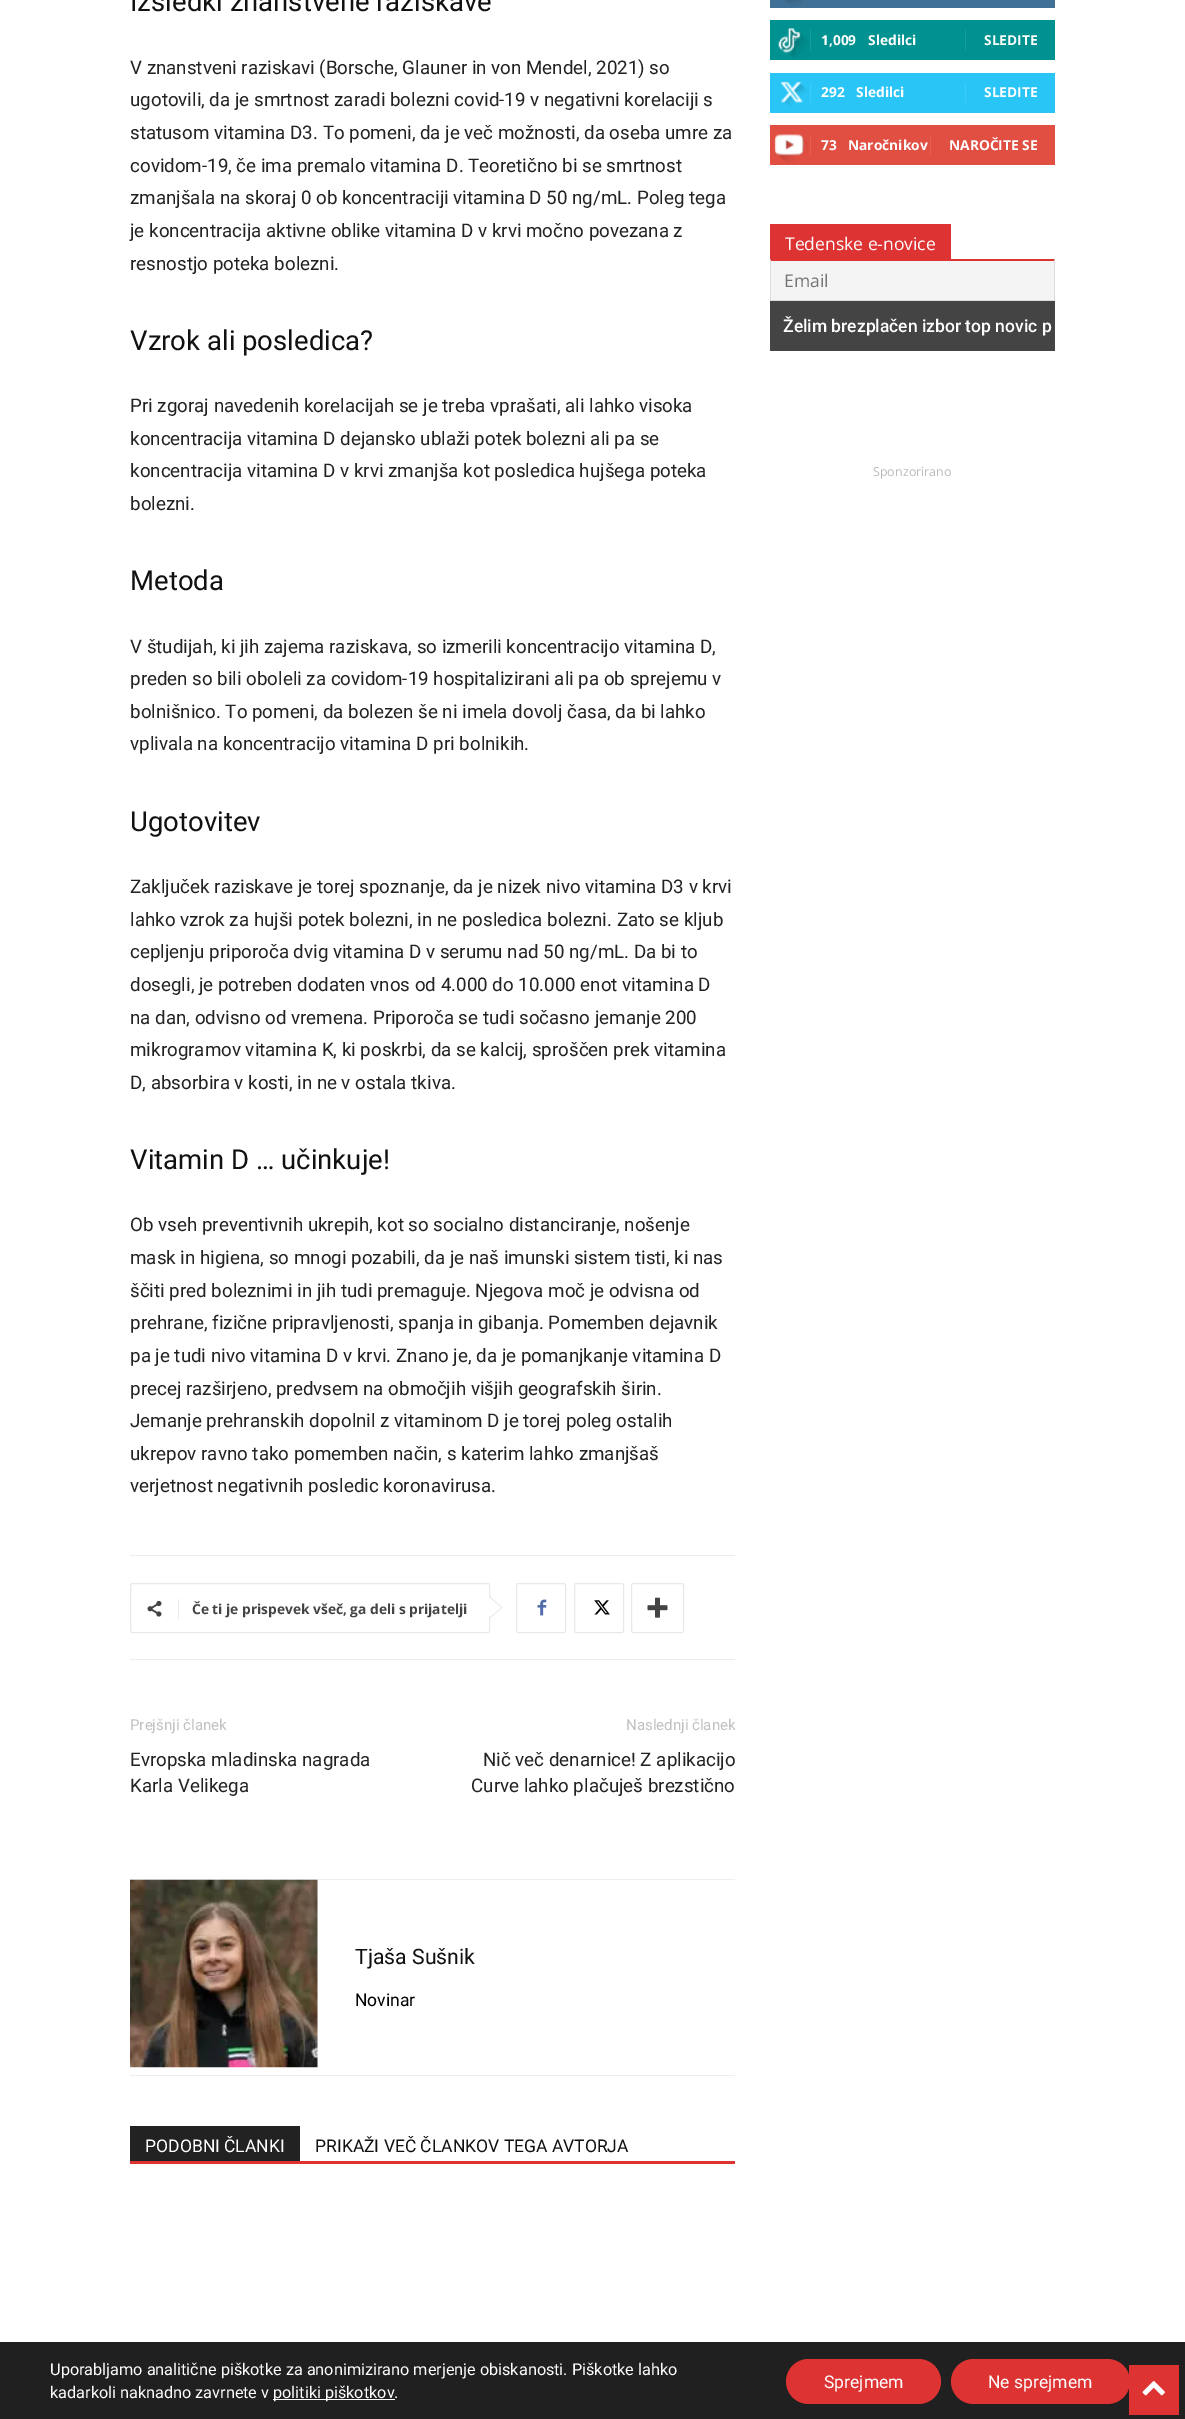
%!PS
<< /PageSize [1185 2419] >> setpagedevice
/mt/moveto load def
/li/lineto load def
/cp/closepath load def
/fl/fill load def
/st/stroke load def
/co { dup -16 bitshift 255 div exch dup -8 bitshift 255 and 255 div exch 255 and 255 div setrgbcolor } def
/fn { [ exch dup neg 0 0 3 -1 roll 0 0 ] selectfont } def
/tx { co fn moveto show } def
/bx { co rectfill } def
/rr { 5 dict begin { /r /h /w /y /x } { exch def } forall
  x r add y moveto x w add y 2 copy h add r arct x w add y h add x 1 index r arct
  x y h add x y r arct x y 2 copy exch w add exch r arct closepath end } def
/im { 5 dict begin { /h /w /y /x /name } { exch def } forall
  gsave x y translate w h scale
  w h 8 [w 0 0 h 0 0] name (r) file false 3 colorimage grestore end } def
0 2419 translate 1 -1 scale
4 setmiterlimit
0 0 1185 2419 16#FFFFFF bx
130 1555 605 1 16#EDEDED bx
130 1659 605 1 16#EDEDED bx
16#E9E9E9 co
130.5 1583.5 359 49 2 rr st
489 1619 mt 489 1596 li 502.5 1607.5 li cp fl
(media/1.raw) 147 1600 15 17 im
178 1599 1 20 16#EBEBEB bx
16#FFFFFF co
489 1617.5 mt 489 1597.5 li 501 1607.5 li cp fl
16#E9E9E9 co
516.5 1583.5 49 49 2 rr st
(media/2.raw) 537 1599 10 17 im
574.5 1583.5 49 49 2 rr st
(media/3.raw) 594 1600 16 15 im
631.5 1583.5 52 49 2 rr st
(media/4.raw) 647 1597 21 21 im
130 1879 605 1 16#EEEEEE bx
130 2075 605 1 16#EEEEEE bx
(media/5.raw) 130 1879 188 189 im
130 2161 605 3 16#DD3333 bx
130 2126 170 35 16#222222 bx
770 0 285 8 16#417096 bx
(media/6.raw) 784 0 19 6 im
770 20 285 40 16#009191 bx
(media/7.raw) 778 28 31 31 im
810 30 1 20 16#1A9C9C bx
965 30 1 20 16#1A9C9C bx
770 73 285 40 16#29C5F6 bx
(media/8.raw) 780 81 28 27 im
810 83 1 20 16#3ECBF7 bx
965 83 1 20 16#3ECBF7 bx
770 125 285 40 16#E14E42 bx
(media/9.raw) 774 134 34 30 im
810 135 1 20 16#E46055 bx
930 135 1 20 16#E46055 bx
770 224 181 35 16#DD3333 bx
771 261 283 39 16#F4F4F4 bx
16#DD3333 co
770 259 mt 1055 259 li 1054 261 li 771 261 li cp fl
16#DDDDDD co
1055 259 mt 1055 301 li 1054 300 li 1054 261 li cp fl
770 300 285 1 16#DDDDDD bx
770 301 mt 770 259 li 771 261 li 771 300 li cp fl
770 301 285 50 16#444444 bx
0 2342 1185 77 16#202020 bx
273 2399 122 1 16#FFFFFF bx
16#DD3333 co
786 2359 155 45 22.5 rr fl
951 2359 179 45 22.5 rr fl
1129 2365 50 50 16#DD3333 bx
(media/10.raw) 1142 2381 23 15 im
(Izsledki znanstvene raziskave) 130 11 /Roboto-Regular 27.5 16#111111 tx
(V znanstveni raziskavi \(Borsche, Glauner in von Mendel, 2021\) so) 130 74 /Roboto-Regular 18.75 16#222222 tx
(ugotovili, da je smrtnost zaradi bolezni covid-19 v negativni korelaciji s) 130 106 /Roboto-Regular 18.75 16#222222 tx
(statusom vitamina D3. To pomeni, da je več možnosti, da oseba umre za) 130 139 /Roboto-Regular 18.75 16#222222 tx
(covidom-19, če ima premalo vitamina D. Teoretično bi se smrtnost) 130 172 /Roboto-Regular 18.75 16#222222 tx
(zmanjšala na skoraj 0 ob koncentraciji vitamina D 50 ng/mL. Poleg tega) 130 204 /Roboto-Regular 18.75 16#222222 tx
(je koncentracija aktivne oblike vitamina D v krvi močno povezana z) 130 237 /Roboto-Regular 18.75 16#222222 tx
(resnostjo poteka bolezni.) 130 270 /Roboto-Regular 18.75 16#222222 tx
(Vzrok ali posledica?) 130 350 /Roboto-Regular 27.5 16#111111 tx
(Pri zgoraj navedenih korelacijah se je treba vprašati, ali lahko visoka) 130 412 /Roboto-Regular 18.75 16#222222 tx
(koncentracija vitamina D dejansko ublaži potek bolezni ali pa se) 130 445 /Roboto-Regular 18.75 16#222222 tx
(koncentracija vitamina D v krvi zmanjša kot posledica hujšega poteka) 130 477 /Roboto-Regular 18.75 16#222222 tx
(bolezni.) 130 510 /Roboto-Regular 18.75 16#222222 tx
(Metoda) 130 590 /Roboto-Regular 27.5 16#111111 tx
(V študijah, ki jih zajema raziskava, so izmerili koncentracijo vitamina D,) 130 653 /Roboto-Regular 18.75 16#222222 tx
(preden so bili oboleli za covidom-19 hospitalizirani ali pa ob sprejemu v) 130 685 /Roboto-Regular 18.75 16#222222 tx
(bolnišnico. To pomeni, da bolezen še ni imela dovolj časa, da bi lahko) 130 718 /Roboto-Regular 18.75 16#222222 tx
(vplivala na koncentracijo vitamina D pri bolnikih.) 130 750 /Roboto-Regular 18.75 16#222222 tx
(Ugotovitev) 130 831 /Roboto-Regular 27.5 16#111111 tx
(Zaključek raziskave je torej spoznanje, da je nizek nivo vitamina D3 v krvi) 130 893 /Roboto-Regular 18.75 16#222222 tx
(lahko vzrok za hujši potek bolezni, in ne posledica bolezni. Zato se kljub) 130 926 /Roboto-Regular 18.75 16#222222 tx
(cepljenju priporoča dvig vitamina D v serumu nad 50 ng/mL. Da bi to) 130 958 /Roboto-Regular 18.75 16#222222 tx
(dosegli, je potreben dodaten vnos od 4.000 do 10.000 enot vitamina D) 130 991 /Roboto-Regular 18.75 16#222222 tx
(na dan, odvisno od vremena. Priporoča se tudi sočasno jemanje 200) 130 1024 /Roboto-Regular 18.75 16#222222 tx
(mikrogramov vitamina K, ki poskrbi, da se kalcij, sproščen prek vitamina) 130 1056 /Roboto-Regular 18.75 16#222222 tx
(D, absorbira v kosti, in ne v ostala tkiva.) 130 1089 /Roboto-Regular 18.75 16#222222 tx
(Vitamin D … učinkuje!) 130 1169 /Roboto-Regular 27.5 16#111111 tx
(Ob vseh preventivnih ukrepih, kot so socialno distanciranje, nošenje) 130 1231 /Roboto-Regular 18.75 16#222222 tx
(mask in higiena, so mnogi pozabili, da je naš imunski sistem tisti, ki nas) 130 1264 /Roboto-Regular 18.75 16#222222 tx
(ščiti pred boleznimi in jih tudi premaguje. Njegova moč je odvisna od) 130 1297 /Roboto-Regular 18.75 16#222222 tx
(prehrane, fizične pripravljenosti, spanja in gibanja. Pomemben dejavnik) 130 1329 /Roboto-Regular 18.75 16#222222 tx
(pa je tudi nivo vitamina D v krvi. Znano je, da je pomanjkanje vitamina D) 130 1362 /Roboto-Regular 18.75 16#222222 tx
(precej razširjeno, predvsem na območjih višjih geografskih širin.) 130 1395 /Roboto-Regular 18.75 16#222222 tx
(Jemanje prehranskih dopolnil z vitaminom D je torej poleg ostalih) 130 1427 /Roboto-Regular 18.75 16#222222 tx
(ukrepov ravno tako pomemben način, s katerim lahko zmanjšaš) 130 1460 /Roboto-Regular 18.75 16#222222 tx
(verjetnost negativnih posledic koronavirusa.) 130 1492 /Roboto-Regular 18.75 16#222222 tx
(Če ti je prispevek všeč, ga deli s prijatelji) 192 1614 /OpenSans-Bold 13.75 16#444444 tx
(Prejšnji članek) 130 1730 /Roboto-Regular 15 16#C1C1C1 tx
(Evropska mladinska nagrada) 130 1766 /Roboto-Regular 18.75 16#222222 tx
(Karla Velikega) 130 1792 /Roboto-Regular 18.75 16#222222 tx
(Naslednji članek) 626 1730 /Roboto-Regular 15 16#C1C1C1 tx
(Nič več denarnice! Z aplikacijo) 483 1766 /Roboto-Regular 18.75 16#222222 tx
(Curve lahko plačuješ brezstično) 471 1792 /Roboto-Regular 18.75 16#222222 tx
(Tjaša Sušnik) 355 1964 /Roboto-Regular 21.25 16#111111 tx
(Novinar) 355 2006 /Roboto-Regular 17.5 16#000000 tx
(PODOBNI ČLANKI) 145 2152 /Roboto-Regular 17.5 16#FFFFFF tx
(PRIKAŽI VEČ ČLANKOV TEGA AVTORJA) 315 2152 /Roboto-Regular 17.5 16#111111 tx
(1,009) 821 45 /OpenSans-Bold 13.75 16#FFFFFF tx
(Sledilci) 868 45 /OpenSans-Bold 13.75 16#FFFFFF tx
(SLEDITE) 984 45 /OpenSans-Bold 13.75 16#FFFFFF tx
(292) 821 97 /OpenSans-Bold 13.75 16#FFFFFF tx
(Sledilci) 856 97 /OpenSans-Bold 13.75 16#FFFFFF tx
(SLEDITE) 984 97 /OpenSans-Bold 13.75 16#FFFFFF tx
(73) 821 150 /OpenSans-Bold 13.75 16#FFFFFF tx
(Naročnikov) 848 150 /OpenSans-Bold 13.75 16#FFFFFF tx
(NAROČITE SE) 949 150 /OpenSans-Bold 13.75 16#FFFFFF tx
(Tedenske e-novice) 785 250 /OpenSans-Regular 17.5 16#FFFFFF tx
(Email) 784 287 /OpenSans-Regular 17.5 16#757575 tx
(Želim brezplačen izbor top novic p) 783 332 /Roboto-Medium 17.5 16#FFFFFF tx
(Sponzorirano) 873 476 /OpenSans-Regular 12.5 16#BBBBBB tx
(Uporabljamo analitične piškotke za anonimizirano merjenje obiskanosti. Piškotke lahko) 50 2375 /Roboto-Regular 16.25 16#FFFFFF tx
(kadarkoli naknadno zavrnete v) 50 2398 /Roboto-Regular 16.25 16#FFFFFF tx
(politiki piškotkov.) 273 2398 /Roboto-Regular 16.25 16#FFFFFF tx
(Sprejmem) 824 2388 /Roboto-Regular 17.5 16#FFFFFF tx
(Ne sprejmem) 988 2388 /Roboto-Regular 17.5 16#FFFFFF tx
showpage
